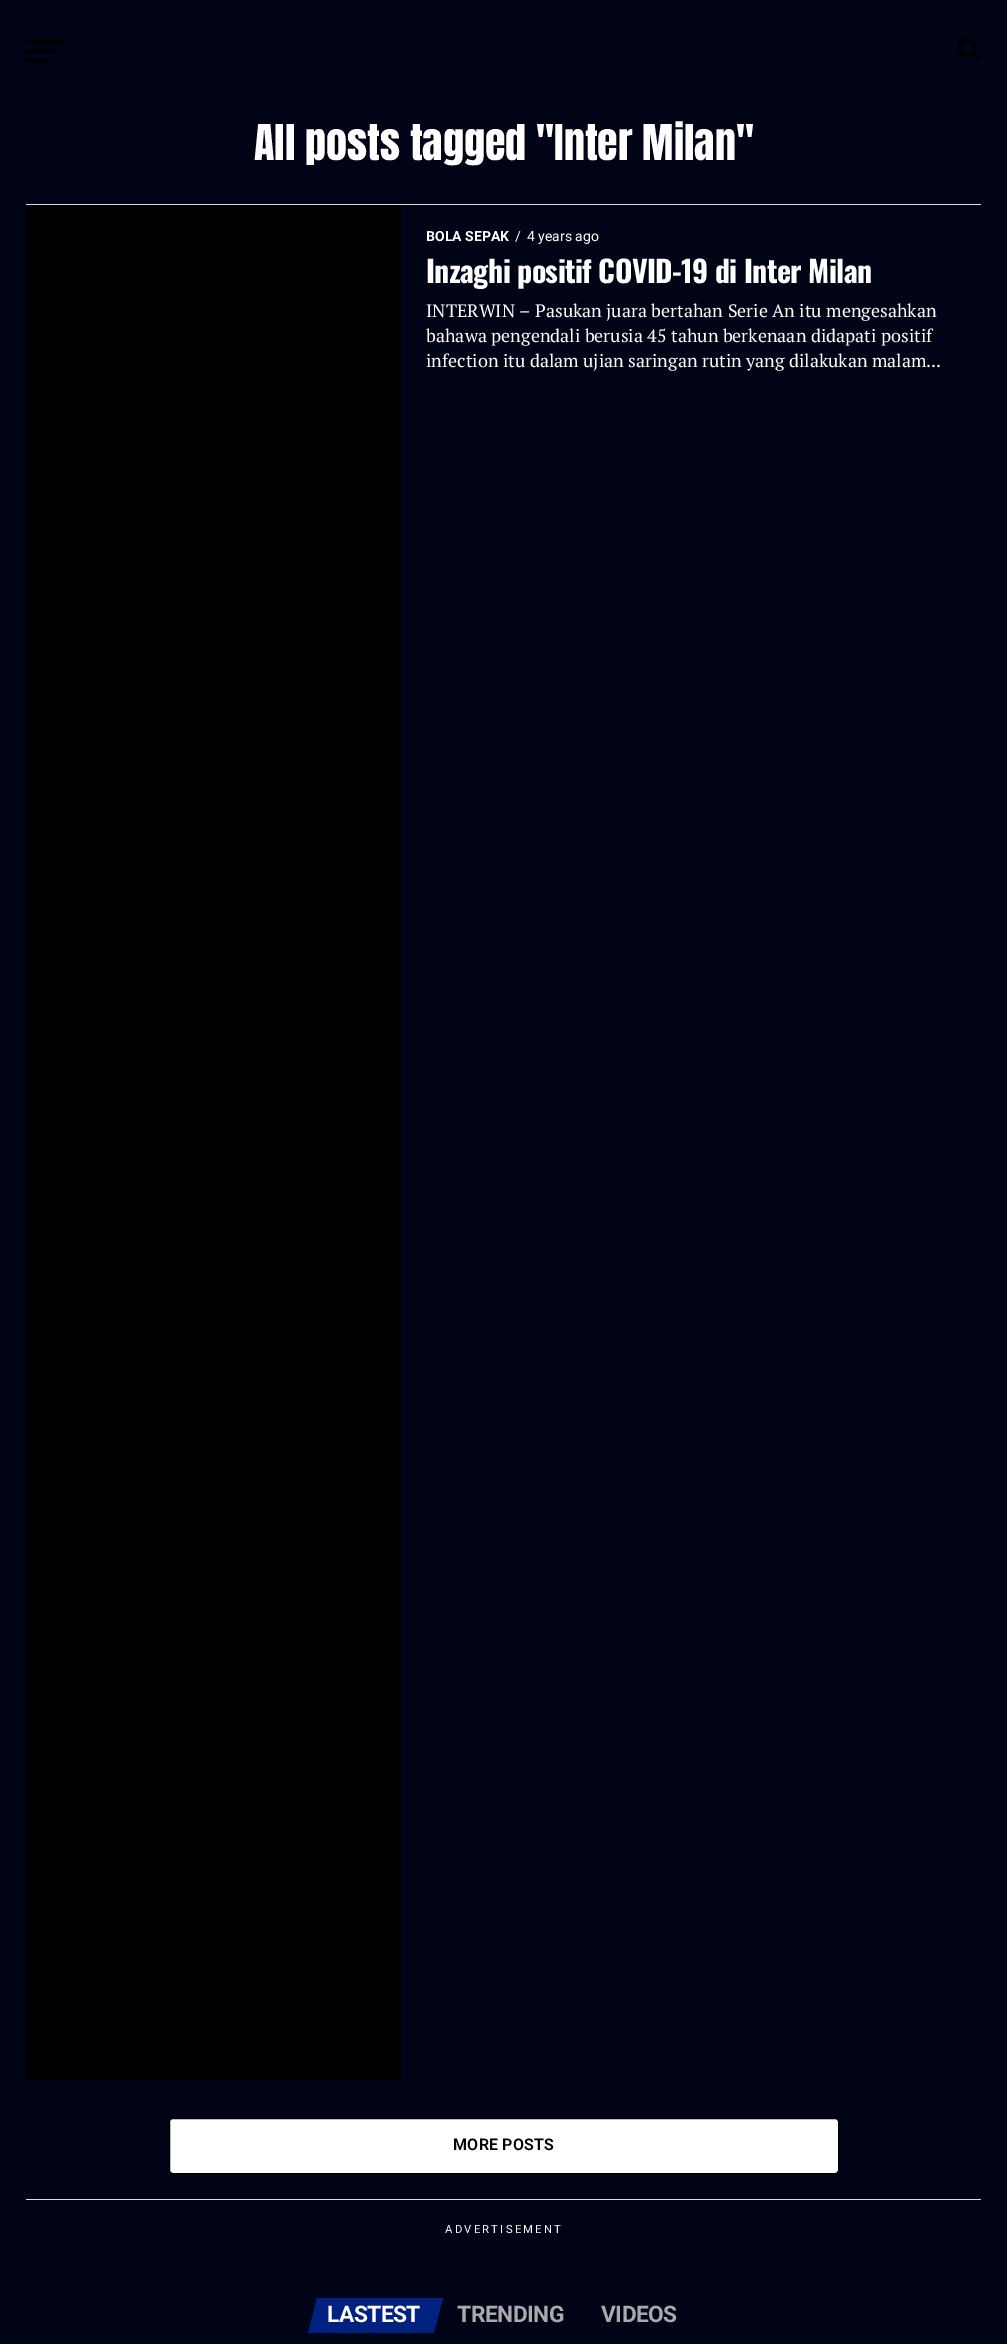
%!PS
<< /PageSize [1007 2344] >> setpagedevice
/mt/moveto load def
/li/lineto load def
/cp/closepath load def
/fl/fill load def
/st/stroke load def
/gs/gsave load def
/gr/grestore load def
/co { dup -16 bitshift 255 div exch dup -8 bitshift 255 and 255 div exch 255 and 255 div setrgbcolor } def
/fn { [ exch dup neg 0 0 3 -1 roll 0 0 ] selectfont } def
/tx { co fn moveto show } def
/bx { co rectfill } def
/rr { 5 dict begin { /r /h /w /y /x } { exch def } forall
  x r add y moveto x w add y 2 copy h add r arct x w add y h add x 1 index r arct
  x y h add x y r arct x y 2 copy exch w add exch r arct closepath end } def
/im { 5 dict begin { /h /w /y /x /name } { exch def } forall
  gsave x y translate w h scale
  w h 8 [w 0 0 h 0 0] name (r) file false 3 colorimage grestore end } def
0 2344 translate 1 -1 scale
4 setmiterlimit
0 0 1007 2344 16#010417 bx
16#000000 co
26 39 38 4 2 rr fl
26 49 30 4 2 rr fl
26 59 23 4 2 rr fl
(media/1.raw) 957 38 24 23 im
26 204 955 1 16#DDDDDD bx
26 205 375 1875 16#000000 bx
16#FFFFFF co
169.5 2118.5 669 55 3.5 rr gs fl gr
16#000000 co
st
26 2199 955 1 16#DDDDDD bx
16#00217F co
317 2298 mt 443 2298 li 434 2333 li 308 2333 li cp fl
(All posts tagged "Inter Milan") 254 160 /Anton-Regular 42 16#FFFFFF tx
(BOLA SEPAK) 426 241 /Roboto-Bold 14 16#FFFFFF tx
(/) 515 241 /Roboto-Regular 14 16#FFFFFF tx
(4 years ago) 527 241 /Roboto-Regular 14 16#FFFFFF tx
/Oswald-Bold 30 fn
426 283 mt -.6 0 (Inzaghi positif COVID-19 di Inter Milan) ashow
(INTERWIN – Pasukan juara bertahan Serie An itu mengesahkan) 426 317 /PTSerif-Regular 18 16#FFFFFF tx
(bahawa pengendali berusia 45 tahun berkenaan didapati positif) 426 342 /PTSerif-Regular 18 16#FFFFFF tx
(infection itu dalam ujian saringan rutin yang dilakukan malam...) 426 367 /PTSerif-Regular 18 16#FFFFFF tx
/Roboto-SemiBold 16 fn
16#000000 co
453 2150 mt .25 0 (MORE POSTS) ashow
/Roboto-Regular 11.25 fn
16#FFFFFF co
445 2233 mt 2.25 0 (ADVERTISEMENT) ashow
/Roboto-Bold 22.75 fn
327 2322 mt -.5 0 (LASTEST) ashow
16#AAAAAA co
457 2322 mt -.5 0 (TRENDING) ashow
601 2322 mt -.5 0 (VIDEOS) ashow
showpage
